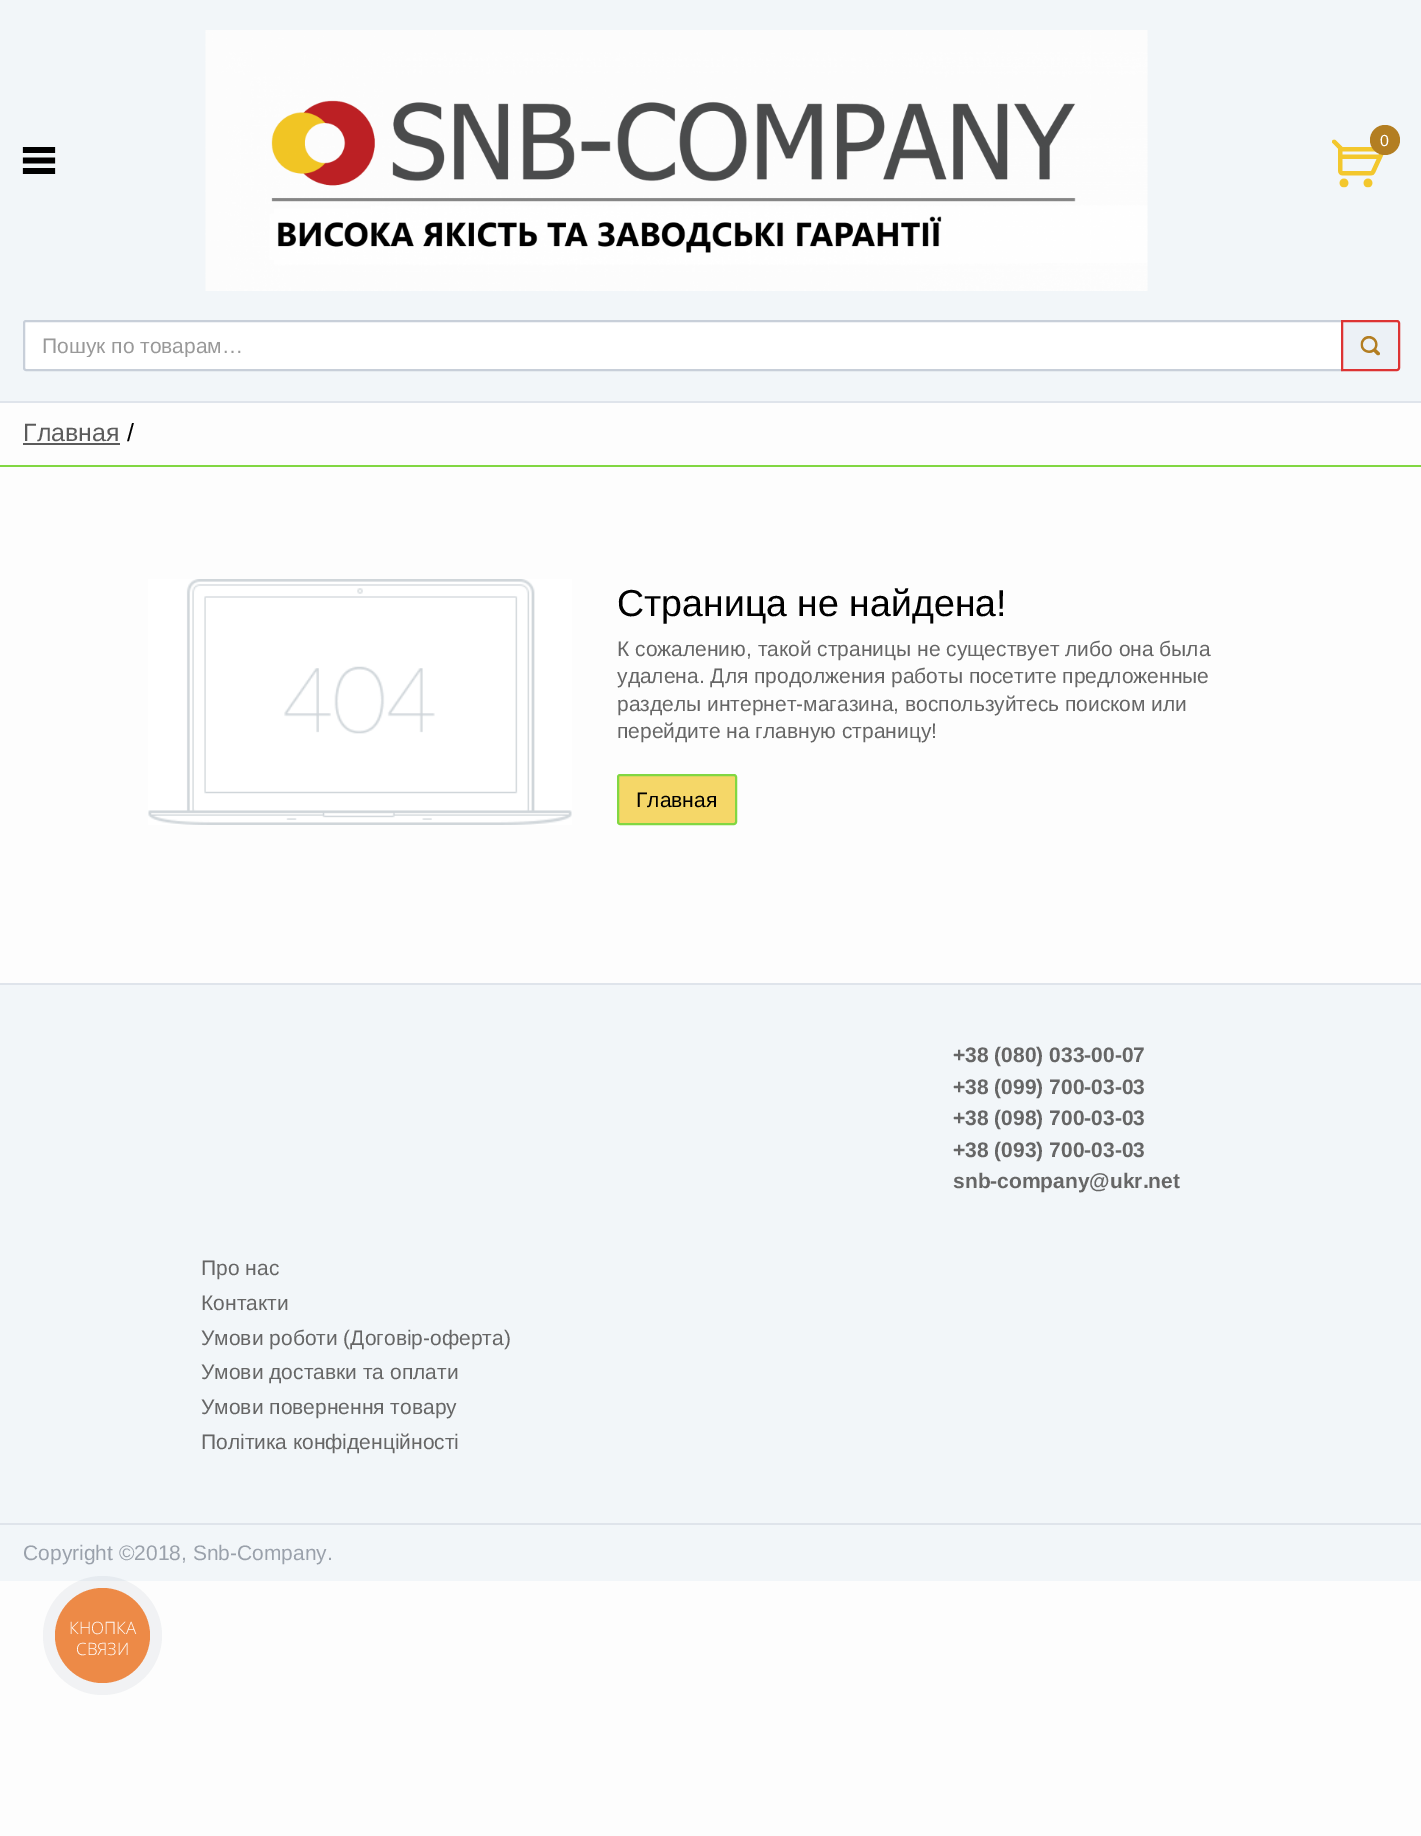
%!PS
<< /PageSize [1421 1836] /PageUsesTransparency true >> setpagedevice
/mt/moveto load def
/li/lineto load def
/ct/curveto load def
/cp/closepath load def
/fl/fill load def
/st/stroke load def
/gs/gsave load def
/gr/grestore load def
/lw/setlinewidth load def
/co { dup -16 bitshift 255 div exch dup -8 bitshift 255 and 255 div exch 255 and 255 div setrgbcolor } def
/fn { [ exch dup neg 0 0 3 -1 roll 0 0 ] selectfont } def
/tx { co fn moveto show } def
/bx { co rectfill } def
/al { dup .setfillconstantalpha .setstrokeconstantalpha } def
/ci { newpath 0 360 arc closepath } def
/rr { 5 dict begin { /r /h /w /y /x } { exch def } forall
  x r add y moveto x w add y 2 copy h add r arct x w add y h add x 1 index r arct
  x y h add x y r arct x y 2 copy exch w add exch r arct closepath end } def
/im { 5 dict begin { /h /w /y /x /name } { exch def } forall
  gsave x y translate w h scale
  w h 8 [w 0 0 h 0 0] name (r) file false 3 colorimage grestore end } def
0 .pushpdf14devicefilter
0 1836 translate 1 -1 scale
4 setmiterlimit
0 0 1421 1836 16#FDFDFD bx
0 0 1421 401 16#F2F6F9 bx
0 401 1421 2 16#DFE4EB bx
(media/1.raw) 205 30 943 261 im
(media/2.raw) 1332 139 52 49 im
16#B37E22 co
1385 140 15 ci fl
(media/3.raw) 22 147 34 27 im
16#FFFFFF co
26 321 mt 1342 321 li 1342 370 li 26 370 li 25 370 24 369 24 368 ct 24 323 li 24 322 25 321 26 321 ct cp gs fl gr
16#C8CFD9 co
2 lw
st
16#ECF1F6 co
1342 321 mt 1397 321 li 1398 321 1399 322 1399 323 ct 1399 368 li 1399 369 1398 370 1397 370 ct 1342 370 li cp gs fl gr
16#DD3333 co
st
(media/4.raw) 1360 336 20 20 im
0 465 1421 2 16#81D742 bx
23 443 97 2 16#5B5B5B bx
(media/5.raw) 148 579 424 246 im
16#F5D768 co
618 775 118 49 2 rr gs fl gr
16#81D742 co
st
0 985 1421 596 16#F2F6F9 bx
0 983 1421 2 16#DFE4EB bx
0 1523 1421 2 16#DFE4EB bx
0.06 al
16#2A405D co
102.5 1635.5 59.5 ci fl
1 al
16#ED8A47 co
102.5 1635.5 47.5 ci fl
(0) 1380 146 /LiberationSans-Regular 16 16#FFFFFF tx
gs
42 333 1281 24 rectclip
(Пошук по товарам…) 42 353 /LiberationSans-Regular 21 16#999999 tx
gr
(Главная) 23 441 /LiberationSans-Regular 25 16#5B5B5B tx
(/) 127 441 /LiberationSans-Regular 25 16#000000 tx
(Страница не найдена!) 617 616 /LiberationSans-Regular 37.5 16#000000 tx
(К сожалению, такой страницы не существует либо она была) 617 656 /LiberationSans-Regular 21 16#666666 tx
(удалена. Для продолжения работы посетите предложенные) 617 683 /LiberationSans-Regular 21 16#666666 tx
(разделы интернет-магазина, воспользуйтесь поиском или) 617 711 /LiberationSans-Regular 21 16#666666 tx
(перейдите на главную страницу!) 617 738 /LiberationSans-Regular 21 16#666666 tx
(Главная) 636 807 /LiberationSans-Regular 21 16#000000 tx
(+38 \(080\) 033-00-07) 953 1062 /LiberationSans-Bold 21 16#666666 tx
(+38 \(099\) 700-03-03) 953 1094 /LiberationSans-Bold 21 16#666666 tx
(+38 \(098\) 700-03-03) 953 1125 /LiberationSans-Bold 21 16#666666 tx
(+38 \(093\) 700-03-03) 953 1157 /LiberationSans-Bold 21 16#666666 tx
(snb-company@ukr.net) 953 1188 /LiberationSans-Bold 21 16#666666 tx
(Про нас) 201 1275 /LiberationSans-Regular 21 16#666666 tx
(Контакти) 201 1310 /LiberationSans-Regular 21 16#666666 tx
(Умови роботи \(Договір-оферта\)) 201 1345 /LiberationSans-Regular 21 16#666666 tx
(Умови доставки та оплати) 201 1379 /LiberationSans-Regular 21 16#666666 tx
(Умови повернення товару) 201 1414 /LiberationSans-Regular 21 16#666666 tx
(Політика конфіденційності) 201 1449 /LiberationSans-Regular 21 16#666666 tx
(Copyright ©2018, Snb-Company.) 23 1560 /LiberationSans-Regular 21 16#9AA1AB tx
(КНОПКА) 69 1634 /OpenSans-Light 17 16#FFFFFF tx
(СВЯЗИ) 76 1655 /OpenSans-Light 17 16#FFFFFF tx
.poppdf14devicefilter showpage
